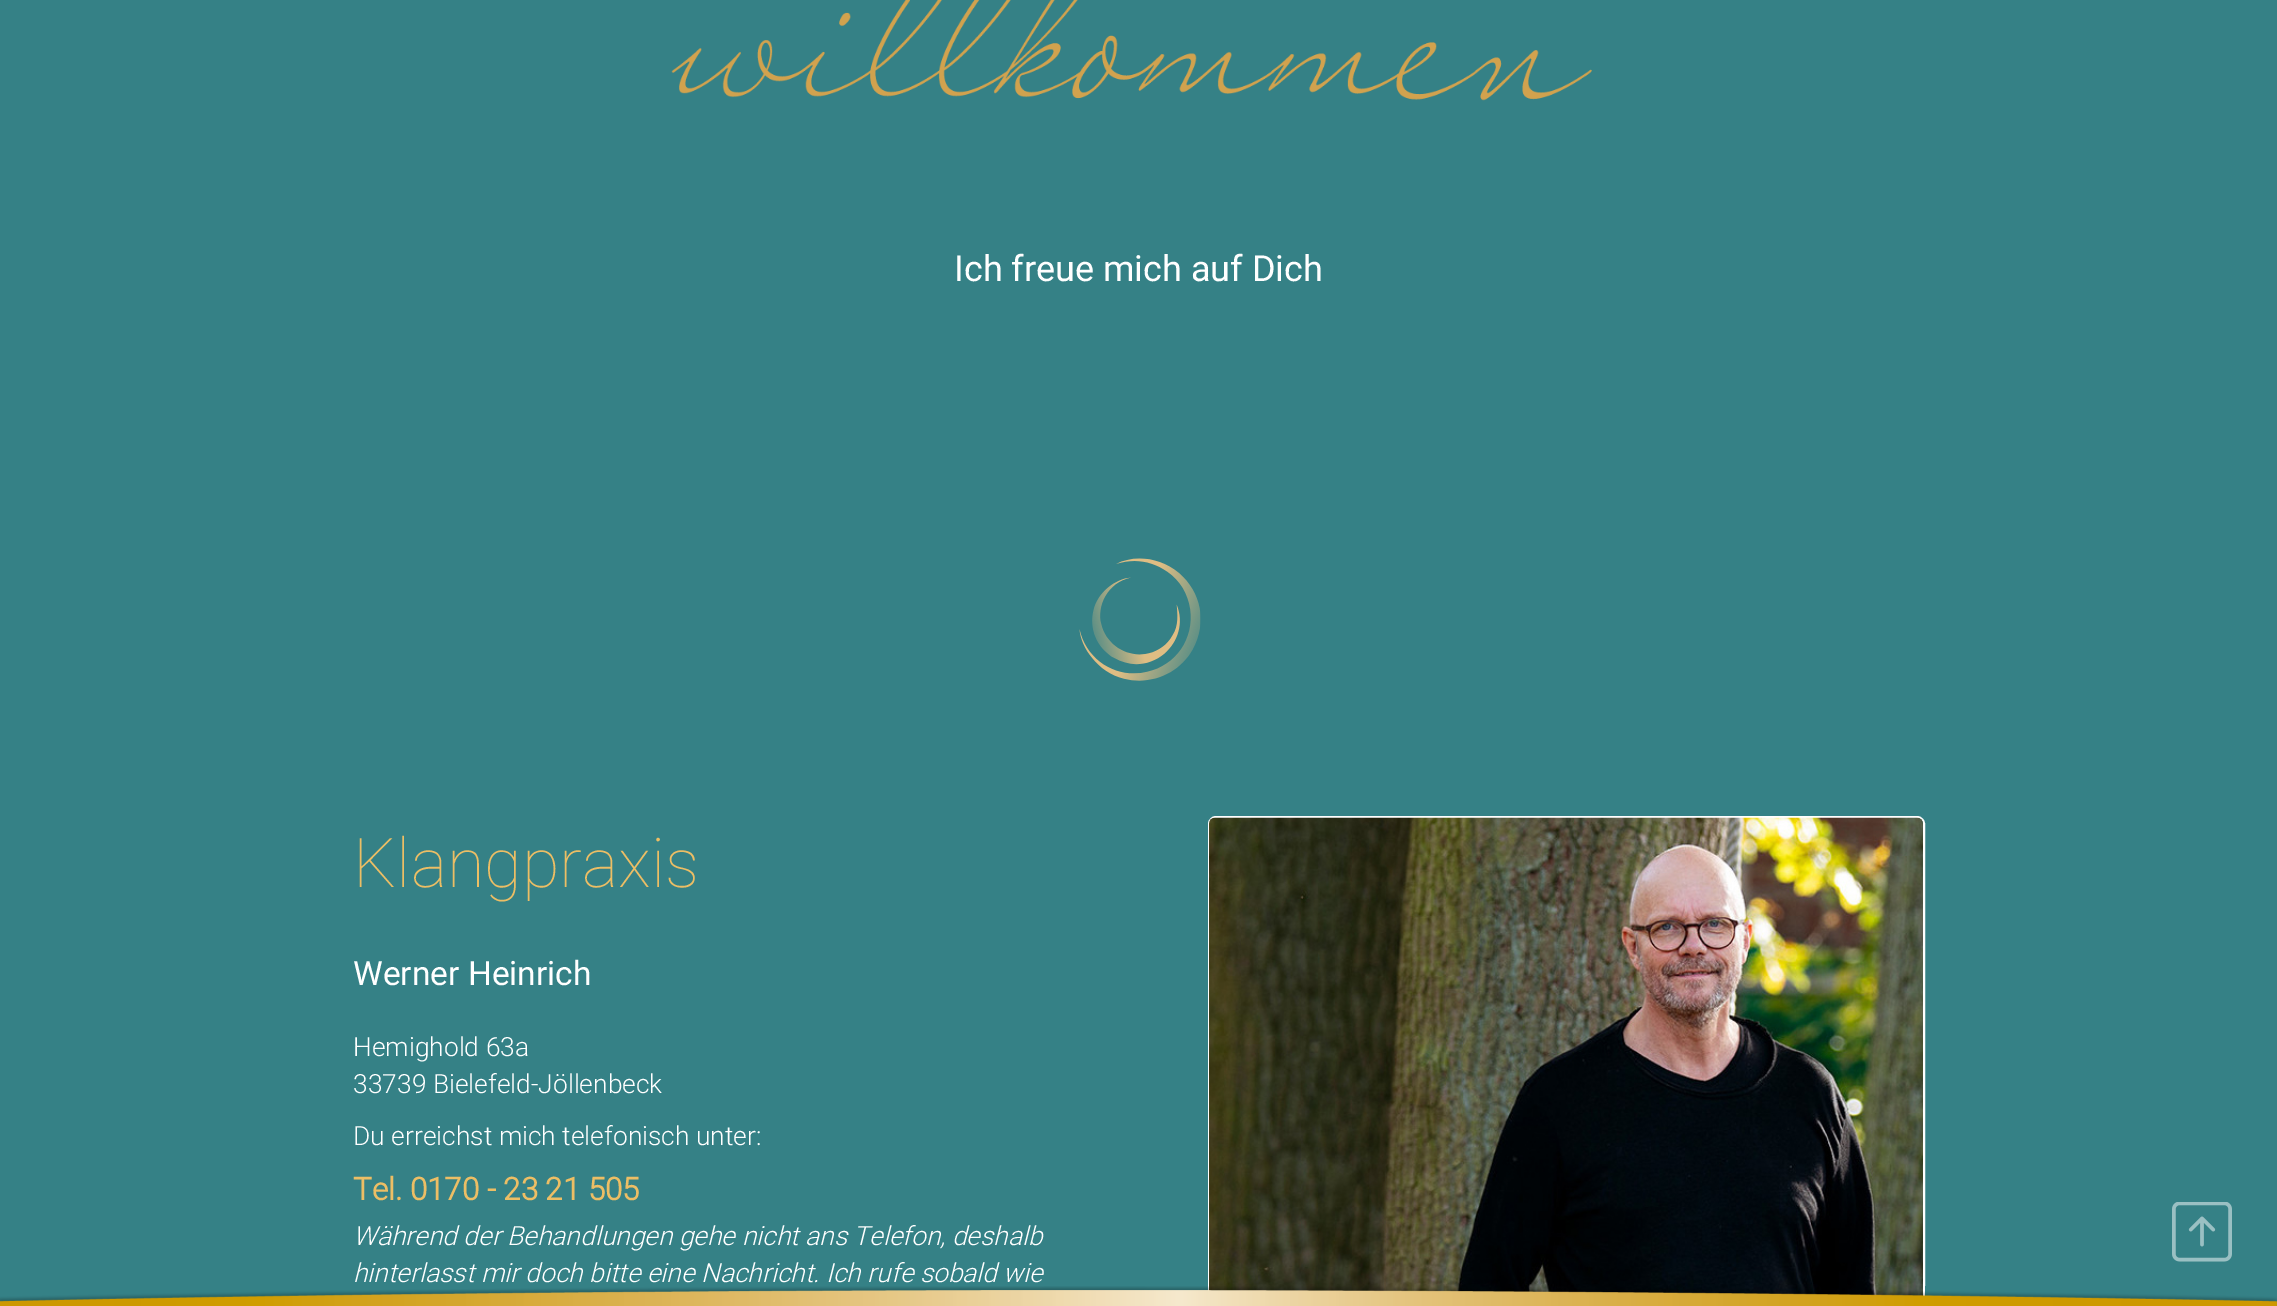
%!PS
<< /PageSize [2277 1306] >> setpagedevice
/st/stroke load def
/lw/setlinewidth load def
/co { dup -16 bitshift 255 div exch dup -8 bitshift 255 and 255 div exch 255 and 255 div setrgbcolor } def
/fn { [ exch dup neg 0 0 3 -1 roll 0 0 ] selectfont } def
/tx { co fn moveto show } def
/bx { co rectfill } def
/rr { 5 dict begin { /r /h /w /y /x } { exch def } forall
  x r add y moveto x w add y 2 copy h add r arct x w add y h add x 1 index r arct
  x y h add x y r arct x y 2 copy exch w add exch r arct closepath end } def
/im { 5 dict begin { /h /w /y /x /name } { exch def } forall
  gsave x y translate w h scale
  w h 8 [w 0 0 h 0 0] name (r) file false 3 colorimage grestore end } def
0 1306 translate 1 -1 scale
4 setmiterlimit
0 0 2277 1306 16#358186 bx
(media/1.raw) 671 0 921 101 im
(media/2.raw) 1079 558 122 123 im
16#FFFFFF co
2 lw
1209 817 715 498 7 rr st
(media/3.raw) 1209 817 714 479 im
(media/4.raw) 2172 1202 60 60 im
(media/5.raw) 0 1286 2277 20 im
(Ich freue mich auf Dich) 954 281 /Roboto-Regular 36 16#FFFFFF tx
(Klangpraxis) 353 887 /Roboto-Thin 68.5 16#ECBE65 tx
(Werner Heinrich) 353 985 /Roboto-Regular 33.5 16#FFFFFF tx
(Hemighold 63a) 353 1056 /Roboto-Light 26.4 16#FFFFFF tx
(33739 Bielefeld-Jöllenbeck) 353 1093 /Roboto-Light 26.4 16#FFFFFF tx
(Du erreichst mich telefonisch unter:) 353 1145 /Roboto-Light 26.4 16#FFFFFF tx
(Tel. 0170 - 23 21 505) 353 1200 /Roboto-Bold 31.25 16#ECBE65 tx
(Während der Behandlungen gehe nicht ans Telefon, deshalb) 353 1245 /Roboto-LightItalic 26.4 16#FFFFFF tx
(hinterlasst mir doch bitte eine Nachricht. Ich rufe sobald wie) 353 1282 /Roboto-LightItalic 26.4 16#FFFFFF tx
showpage
